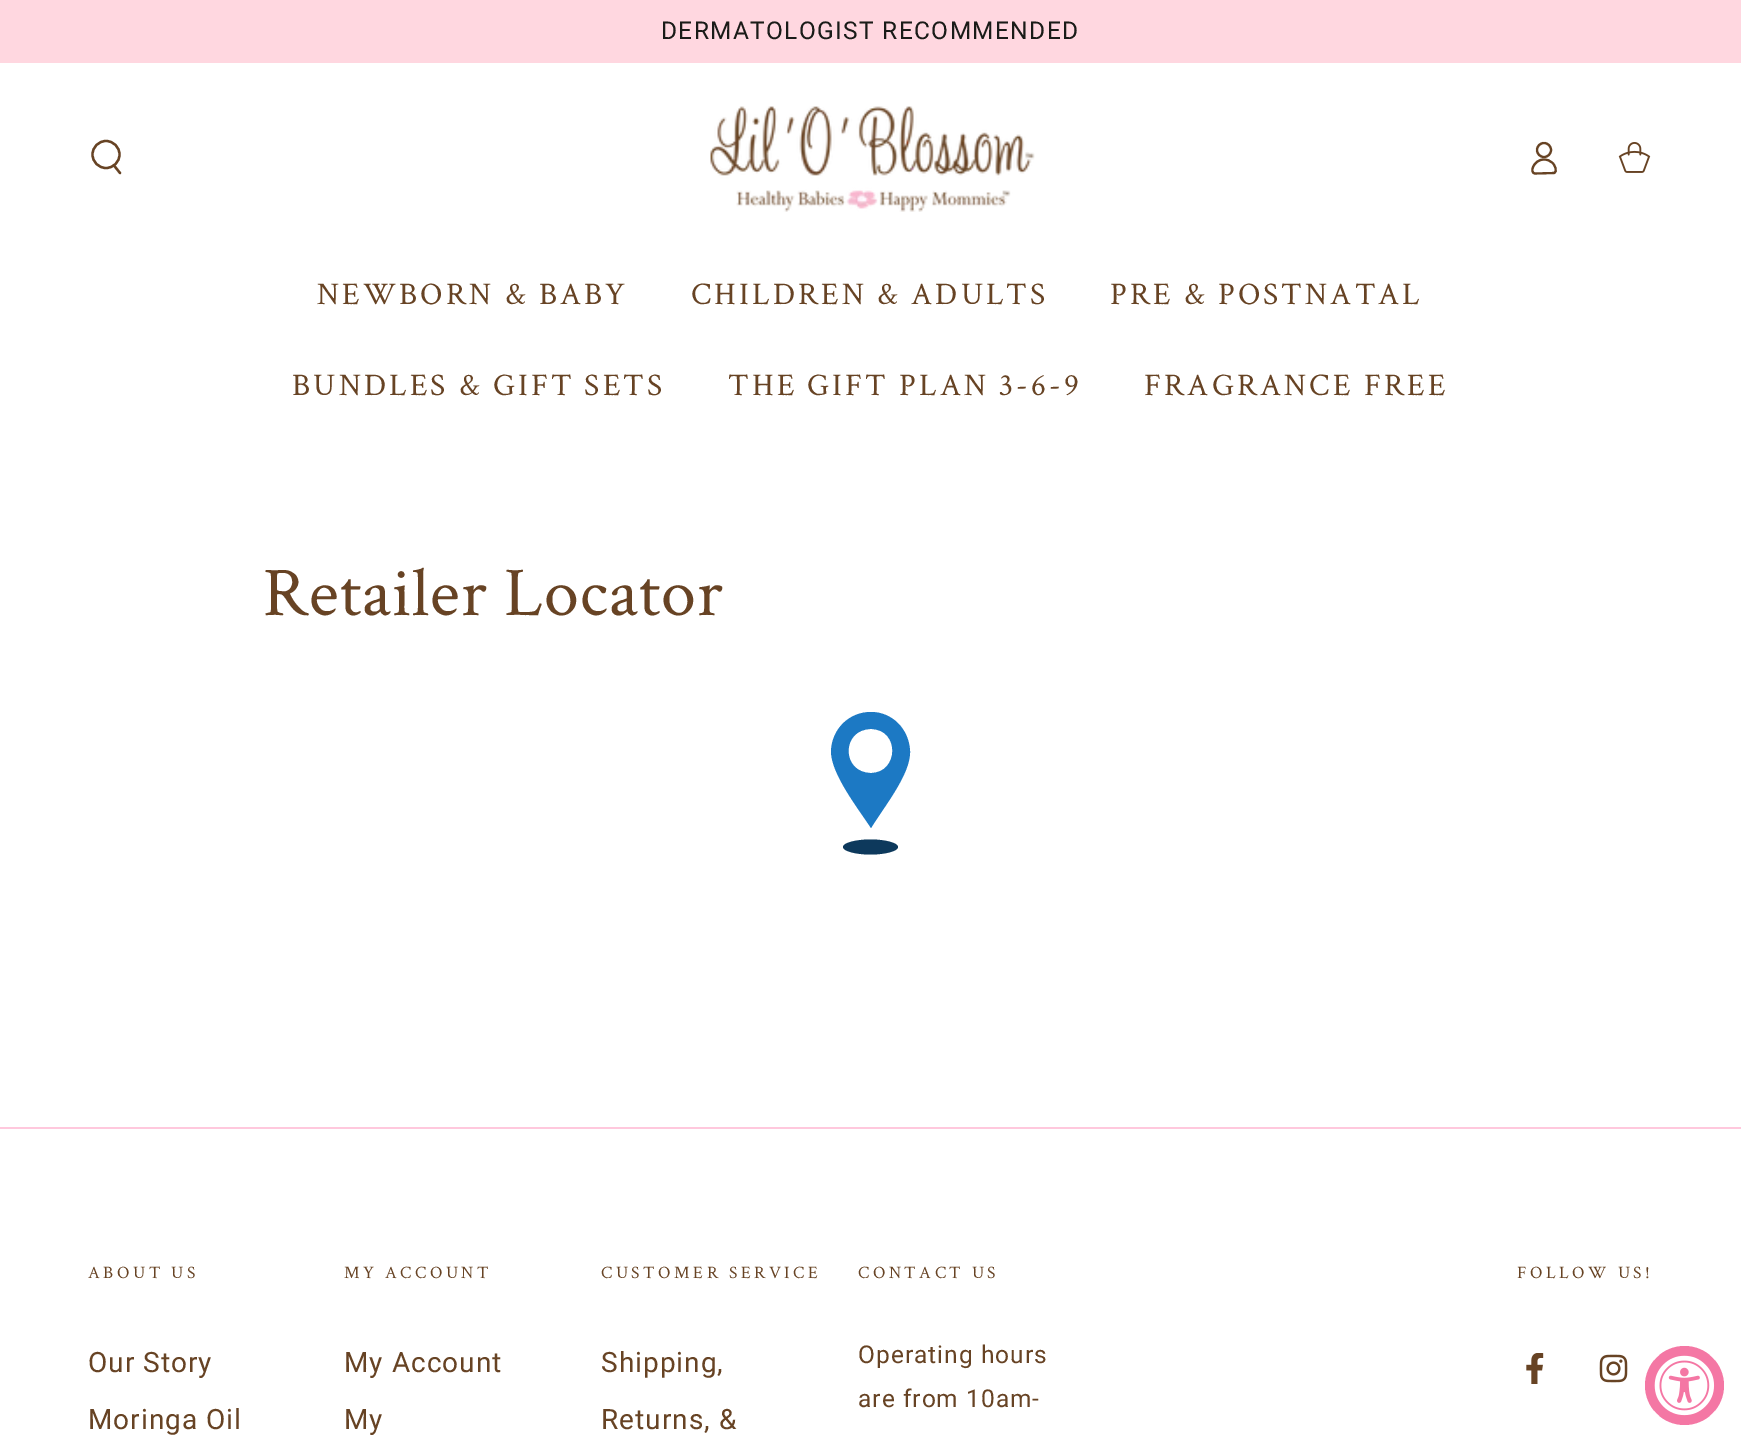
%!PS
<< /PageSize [1741 1441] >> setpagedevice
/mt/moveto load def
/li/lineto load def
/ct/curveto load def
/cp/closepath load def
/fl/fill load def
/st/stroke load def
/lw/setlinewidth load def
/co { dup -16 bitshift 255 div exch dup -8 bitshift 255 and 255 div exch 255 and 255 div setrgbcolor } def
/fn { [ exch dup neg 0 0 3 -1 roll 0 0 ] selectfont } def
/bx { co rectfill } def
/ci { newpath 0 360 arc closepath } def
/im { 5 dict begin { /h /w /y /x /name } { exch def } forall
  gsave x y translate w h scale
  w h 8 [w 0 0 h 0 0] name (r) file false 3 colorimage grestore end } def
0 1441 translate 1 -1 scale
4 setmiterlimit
0 0 1741 1441 16#FFFFFF bx
0 0 1741 63 16#FFD7E0 bx
16#674324 co
2.3 lw
106 154.5 13.5 ci st
1 setlinecap
114 165.5 mt 120 173 li st
(media/1.raw) 710 106 325 106 im
2.1 lw
0 setlinecap
1544 159.5 mt 1533.5 159.5 1529 173 1535 173.5 ct 1554 173 li 1558 171.5 1554.5 164.5 1552.5 163 ct 1550 160.5 1547 159.5 1544 159.5 ct cp st
1544 150 7 ci st
(media/2.raw) 1618 142 33 31 im
16#1C79C4 co
871 828 mt 858 808 831 774 831 751 ct 832 729 849 712 871 712 ct 892 712 909 729 910 751 ct 911 774 883 808 871 828 ct cp 871 729 mt 841 729 841 773 871 773 ct 899 773 900 729 871 729 ct cp fl
16#0D395C co
870.5 839.5 mt 885.5 839.5 898 843 898 847 ct 898 851 885.5 854.5 870.5 854.5 ct 855.5 854.5 843 851 843 847 ct 843 843 855.5 839.5 870.5 839.5 ct cp fl
0 1127 1741 2 16#FFC8DD bx
(media/3.raw) 1526 1353 18 31 im
(media/4.raw) 1599 1354 29 29 im
16#F477A4 co
1684.5 1385.5 39.5 ci fl
(media/5.raw) 1654 1355 61 61 im
/Roboto-Regular 24.5 fn
16#1A1B18 co
661 39 mt 1.35 0 (DERMATOLOGIST RECOMMENDED) ashow
/CrimsonText-Regular 31.5 fn
16#674324 co
317 304 mt 3.1 0 (NEWBORN & BABY) ashow
691 304 mt 3.1 0 (CHILDREN & ADULTS) ashow
1110 304 mt 3.1 0 (PRE & POSTNATAL) ashow
292 395 mt 3.1 0 (BUNDLES & GIFT SETS) ashow
728 395 mt 3.1 0 (THE GIFT PLAN 3-6-9) ashow
1144 395 mt 3.1 0 (FRAGRANCE FREE) ashow
/CrimsonText-Regular 70 fn
263 615 mt 1 0 (Retailer Locator) ashow
/CrimsonText-Regular 17.5 fn
88 1278 mt 3.5 0 (ABOUT US) ashow
/Roboto-Regular 28 fn
88 1372 mt 1 0 (Our Story) ashow
88 1429 mt 1 0 (Moringa Oil) ashow
/CrimsonText-Regular 17.5 fn
344 1278 mt 3.5 0 (MY ACCOUNT) ashow
/Roboto-Regular 28 fn
344 1372 mt 1 0 (My Account) ashow
344 1429 mt 1 0 (My) ashow
/CrimsonText-Regular 17.5 fn
601 1278 mt 3.5 0 (CUSTOMER SERVICE) ashow
/Roboto-Regular 28 fn
601 1372 mt 1 0 (Shipping,) ashow
601 1429 mt 1 0 (Returns, &) ashow
/CrimsonText-Regular 17.5 fn
858 1278 mt 3.5 0 (CONTACT US) ashow
/Roboto-Regular 24.5 fn
858 1363 mt 1 0 (Operating hours) ashow
858 1407 mt 1 0 (are from 10am-) ashow
/CrimsonText-Regular 17.5 fn
1517 1278 mt 3.5 0 (FOLLOW US!) ashow
showpage
